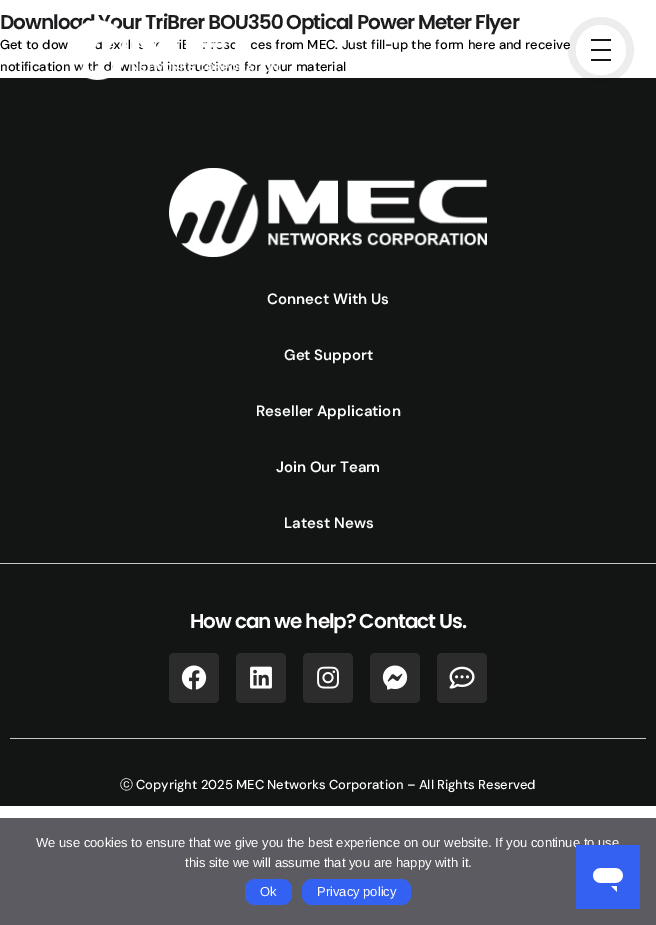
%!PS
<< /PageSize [656 925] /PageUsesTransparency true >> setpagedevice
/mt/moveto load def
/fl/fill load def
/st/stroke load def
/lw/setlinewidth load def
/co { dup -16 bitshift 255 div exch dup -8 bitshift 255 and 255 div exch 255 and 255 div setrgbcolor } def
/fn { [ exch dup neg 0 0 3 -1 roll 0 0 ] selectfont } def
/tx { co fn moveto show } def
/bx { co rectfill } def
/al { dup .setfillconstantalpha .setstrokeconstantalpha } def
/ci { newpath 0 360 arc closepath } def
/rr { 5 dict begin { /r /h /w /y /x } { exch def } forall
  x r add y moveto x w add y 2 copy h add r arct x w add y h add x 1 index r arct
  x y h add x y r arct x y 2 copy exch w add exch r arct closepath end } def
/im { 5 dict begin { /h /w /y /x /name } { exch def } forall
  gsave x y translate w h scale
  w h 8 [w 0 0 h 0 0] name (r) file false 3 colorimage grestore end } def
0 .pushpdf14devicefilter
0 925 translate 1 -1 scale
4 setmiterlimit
0 0 656 925 16#FFFFFF bx
0 78 656 728 16#131515 bx
0.07 al
16#000000 co
8 lw
601 50 29 ci st
1 al
16#FFFFFF co
601 50 25 ci fl
591 49 20 2 16#161617 bx
591 39 20 2 16#161617 bx
591 59 20 2 16#161617 bx
(media/2.raw) 169 168 318 89 im
0 563 656 1 16#C7C7C7 bx
16#2C2C2C co
169 653 50 50 5 rr fl
(media/3.raw) 181 665 26 25 im
236 653 50 50 5 rr fl
(media/4.raw) 250 666 22 23 im
303 653 50 50 5 rr fl
(media/5.raw) 317 666 22 23 im
370 653 50 50 5 rr fl
(media/6.raw) 382 665 26 25 im
437 653 50 50 5 rr fl
(media/7.raw) 449 666 26 23 im
10 738 636 1 16#C7C7C7 bx
0 818 656 107 16#5B5B61 bx
16#3361F2 co
245 879 47 26 10 rr fl
302 879 109 26 10 rr fl
/Poppins-SemiBold 20 fn
16#1D1D1F co
0 29 mt -1 0 (Download Your TriBrer BOU350 Optical Power Meter Flyer) ashow
(Get to dow) 0 49 /DMSans-Medium 13 16#000000 tx
(xcl) 113 49 /DMSans-Medium 13 16#000000 tx
(i) 179 49 /DMSans-Medium 13 16#000000 tx
(ces from MEC. Just fill-up the form here and receive) 250 49 /DMSans-Medium 13 16#000000 tx
(notification with download instructions for your material) 0 71 /DMSans-Medium 13 16#000000 tx
(media/1.raw) 69 20 210 60 im
(Connect With Us) 267 304 /DMSans-SemiBold 15 16#FFFFFF tx
(Get Support) 284 360 /DMSans-SemiBold 15 16#FFFFFF tx
(Reseller Application) 256 416 /DMSans-SemiBold 15 16#FFFFFF tx
(Join Our Team) 276 472 /DMSans-SemiBold 15 16#FFFFFF tx
(Latest News) 284 528 /DMSans-SemiBold 15 16#FFFFFF tx
/Poppins-SemiBold 20 fn
190 628 mt -1 0 (How can we help? Contact Us.) ashow
(ⓒ) 120 789 /WenQuanYiZenHei-Medium 13 16#FFFFFF tx
(Copyright 2025 MEC Networks Corporation – All Rights Reserved) 136 789 /DMSans-Medium 13 16#FFFFFF tx
(We use cookies to ensure that we give you the best experience on our website. If you continue to use) 36 847 /LiberationSans-Regular 13 16#FFFFFF tx
(this site we will assume that you are happy with it.) 185 867 /LiberationSans-Regular 13 16#FFFFFF tx
(Ok) 260 896 /LiberationSans-Regular 13 16#FFFFFF tx
(Privacy policy) 317 896 /LiberationSans-Regular 13 16#FFFFFF tx
(media/8.raw) 576 845 64 64 im
.poppdf14devicefilter showpage
